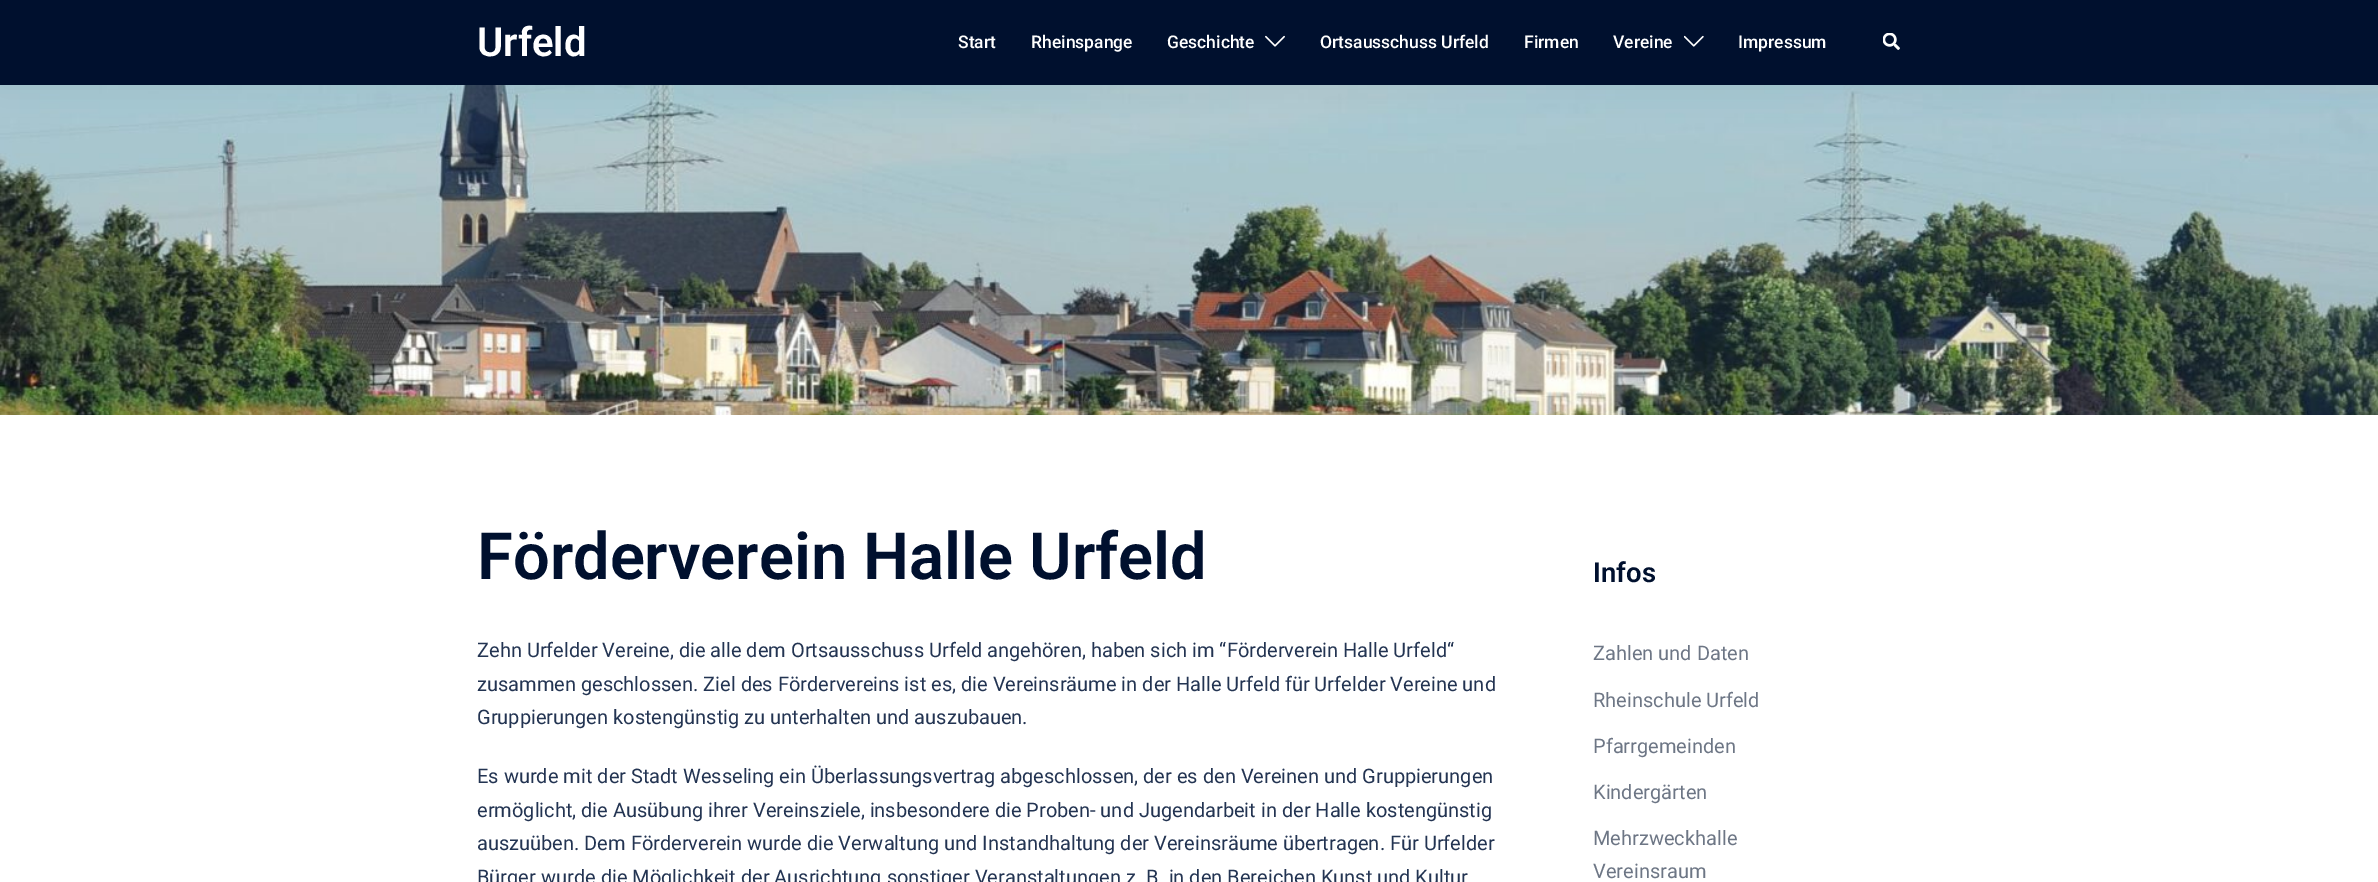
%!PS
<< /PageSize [2378 882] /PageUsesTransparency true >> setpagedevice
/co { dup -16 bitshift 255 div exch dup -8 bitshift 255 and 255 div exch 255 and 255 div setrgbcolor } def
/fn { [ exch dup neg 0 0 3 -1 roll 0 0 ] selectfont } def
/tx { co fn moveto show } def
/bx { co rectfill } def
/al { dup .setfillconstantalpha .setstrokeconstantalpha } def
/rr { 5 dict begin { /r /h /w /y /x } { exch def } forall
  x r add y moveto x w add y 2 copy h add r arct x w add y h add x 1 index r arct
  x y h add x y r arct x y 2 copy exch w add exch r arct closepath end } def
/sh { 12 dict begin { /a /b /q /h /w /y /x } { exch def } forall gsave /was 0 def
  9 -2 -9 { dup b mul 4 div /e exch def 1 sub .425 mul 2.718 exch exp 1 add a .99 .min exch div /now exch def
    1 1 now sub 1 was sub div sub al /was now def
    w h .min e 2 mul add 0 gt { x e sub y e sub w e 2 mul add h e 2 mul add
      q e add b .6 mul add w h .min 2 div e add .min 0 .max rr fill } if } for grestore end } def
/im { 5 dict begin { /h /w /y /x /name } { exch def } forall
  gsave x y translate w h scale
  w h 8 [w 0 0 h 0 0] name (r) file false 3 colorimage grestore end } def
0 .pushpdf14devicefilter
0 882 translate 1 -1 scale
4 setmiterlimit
0 0 2378 882 16#FFFFFF bx
(media/4.raw) 0 85 2378 330 im
16#000000 co
0 0 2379 85 0 19 .05 sh
0 0 2378 85 16#00102E bx
(media/1.raw) 1265 35 20 12 im
(media/2.raw) 1684 35 20 12 im
(media/3.raw) 1883 33 17 17 im
(Urfeld) 477 56 /Roboto-SemiBold 40 16#FFFFFF tx
(Start) 958 48 /Roboto-Medium 17.5 16#FFFFFF tx
(Rheinspange) 1031 48 /Roboto-Medium 17.5 16#FFFFFF tx
(Geschichte) 1167 48 /Roboto-Medium 17.5 16#FFFFFF tx
(Ortsausschuss Urfeld) 1320 48 /Roboto-Medium 17.5 16#FFFFFF tx
(Firmen) 1524 48 /Roboto-Medium 17.5 16#FFFFFF tx
(Vereine) 1613 48 /Roboto-Medium 17.5 16#FFFFFF tx
(Impressum) 1738 48 /Roboto-Medium 17.5 16#FFFFFF tx
(Förderverein Halle Urfeld) 477 579 /Roboto-SemiBold 65 16#00102E tx
(Zehn Urfelder Vereine, die alle dem Ortsausschuss Urfeld angehören, haben sich im “Förderverein Halle Urfeld“) 477 657 /Roboto-Regular 20 16#233452 tx
(zusammen geschlossen. Ziel des Fördervereins ist es, die Vereinsräume in der Halle Urfeld für Urfelder Vereine und) 477 691 /Roboto-Regular 20 16#233452 tx
(Gruppierungen kostengünstig zu unterhalten und auszubauen.) 477 724 /Roboto-Regular 20 16#233452 tx
(Es wurde mit der Stadt Wesseling ein Überlassungsvertrag abgeschlossen, der es den Vereinen und Gruppierungen) 477 783 /Roboto-Regular 20 16#233452 tx
(ermöglicht, die Ausübung ihrer Vereinsziele, insbesondere die Proben- und Jugendarbeit in der Halle kostengünstig) 477 817 /Roboto-Regular 20 16#233452 tx
(auszuüben. Dem Förderverein wurde die Verwaltung und Instandhaltung der Vereinsräume übertragen. Für Urfelder) 477 850 /Roboto-Regular 20 16#233452 tx
(Bürger wurde die Möglichkeit der Ausrichtung sonstiger Veranstaltungen z. B. in den Bereichen Kunst und Kultur) 477 884 /Roboto-Regular 20 16#233452 tx
(Infos) 1593 582 /Roboto-SemiBold 27.5 16#00102E tx
(Zahlen und Daten) 1593 660 /Roboto-Regular 20 16#6D7685 tx
(Rheinschule Urfeld) 1593 707 /Roboto-Regular 20 16#6D7685 tx
(Pfarrgemeinden) 1593 753 /Roboto-Regular 20 16#6D7685 tx
(Kindergärten) 1593 799 /Roboto-Regular 20 16#6D7685 tx
(Mehrzweckhalle) 1593 845 /Roboto-Regular 20 16#6D7685 tx
(Vereinsraum) 1593 878 /Roboto-Regular 20 16#6D7685 tx
.poppdf14devicefilter showpage
